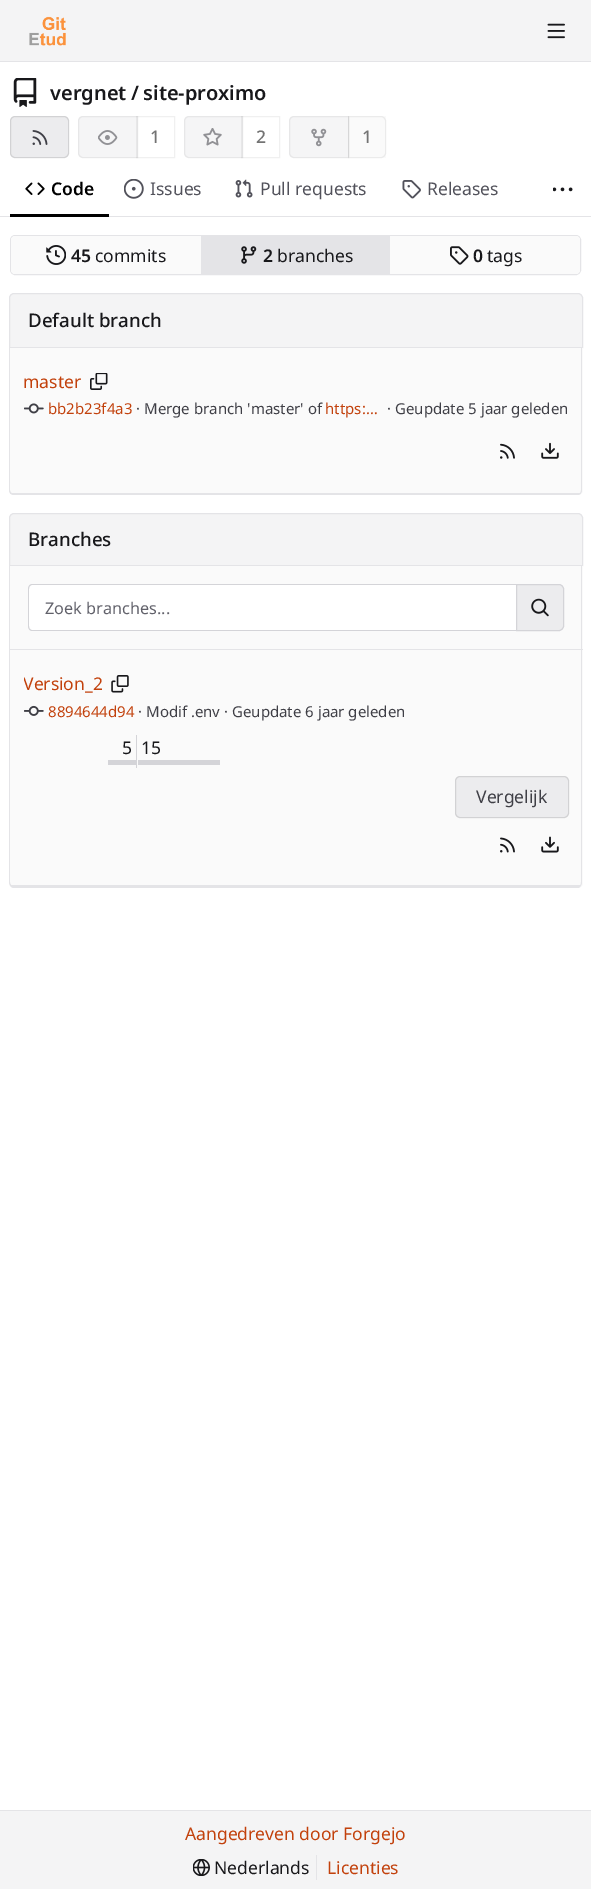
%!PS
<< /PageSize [591 1889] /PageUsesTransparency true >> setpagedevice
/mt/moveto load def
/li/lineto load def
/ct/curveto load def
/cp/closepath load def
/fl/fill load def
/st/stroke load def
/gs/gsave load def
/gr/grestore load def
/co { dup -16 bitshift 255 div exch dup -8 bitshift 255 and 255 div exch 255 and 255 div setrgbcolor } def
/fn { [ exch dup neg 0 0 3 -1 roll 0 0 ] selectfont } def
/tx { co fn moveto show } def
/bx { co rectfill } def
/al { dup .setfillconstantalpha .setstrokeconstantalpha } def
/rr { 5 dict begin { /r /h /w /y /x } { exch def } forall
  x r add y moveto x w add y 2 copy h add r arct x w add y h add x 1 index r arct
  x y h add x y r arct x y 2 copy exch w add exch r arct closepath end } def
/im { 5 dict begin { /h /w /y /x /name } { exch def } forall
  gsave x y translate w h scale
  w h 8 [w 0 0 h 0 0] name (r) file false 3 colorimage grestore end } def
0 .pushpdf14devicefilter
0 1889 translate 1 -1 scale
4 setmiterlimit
0 0 591 1889 16#FFFFFF bx
0 0 591 61 16#F4F4F5 bx
0 61 591 1 16#E4E4E7 bx
(media/1.raw) 29 16 37 30 im
(media/2.raw) 547 23 18 16 im
(media/3.raw) 13 78 24 29 im
16#ECECEE co
10 116 59 42 5 rr fl
0.11 al
16#000000 co
10.5 116.5 58 41 4.5 rr st
1 al
(media/4.raw) 32 130 16 15 im
16#F5F5F6 co
83 116 mt 138 116 li 138 158 li 83 158 li 80 158 78 156 78 153 ct 78 121 li 78 118 80 116 83 116 ct cp fl
0.11 al
16#737373 co
83 116.5 mt 137.5 116.5 li 137.5 157.5 li 83 157.5 li 80.5 157.5 78.5 155.5 78.5 153 ct 78.5 121 li 78.5 118.5 80.5 116.5 83 116.5 ct cp st
1 al
(media/5.raw) 98 130 20 15 im
0.06 al
16#000000 co
136.5 116.5 38 41 rectstroke
1 al
16#F5F5F6 co
189 116 mt 243 116 li 243 158 li 189 158 li 186 158 184 156 184 153 ct 184 121 li 184 118 186 116 189 116 ct cp fl
0.11 al
16#737373 co
189 116.5 mt 242.5 116.5 li 242.5 157.5 li 189 157.5 li 186.5 157.5 184.5 155.5 184.5 153 ct 184.5 121 li 184.5 118.5 186.5 116.5 189 116.5 ct cp st
1 al
(media/6.raw) 203 128 19 18 im
0.06 al
16#000000 co
241.5 116.5 38 41 rectstroke
1 al
16#F5F5F6 co
294 116 mt 349 116 li 349 158 li 294 158 li 291 158 289 156 289 153 ct 289 121 li 289 118 291 116 294 116 ct cp fl
0.11 al
16#737373 co
294 116.5 mt 348.5 116.5 li 348.5 157.5 li 294 157.5 li 291.5 157.5 289.5 155.5 289.5 153 ct 289.5 121 li 289.5 118.5 291.5 116.5 294 116.5 ct cp st
1 al
(media/7.raw) 311 128 16 19 im
0.04 al
348 116 38 42 16#737373 bx
0.11 al
348.5 116.5 mt 381 116.5 li 383.5 116.5 385.5 118.5 385.5 121 ct 385.5 153 li 385.5 155.5 383.5 157.5 381 157.5 ct 348.5 157.5 li cp st
1 al
0 216 591 1 16#E4E4E7 bx
10 214 99 3 16#000000 bx
(media/8.raw) 25 182 20 13 im
(media/9.raw) 124 179 20 20 im
(media/10.raw) 235 179 18 19 im
(media/11.raw) 402 180 19 19 im
(media/12.raw) 553 187 20 5 im
16#E4E4E7 co
10.5 235.5 570 39 4.5 rr st
16#FAFAFA co
11 236 569 38 4 rr fl
(media/13.raw) 46 245 20 20 im
201 236 189 38 16#E4E4E7 bx
(media/14.raw) 241 246 16 18 im
(media/15.raw) 450 246 19 19 im
16#F4F4F5 co
14 293.5 mt 578 293.5 li 580.5 293.5 582.5 295.5 582.5 298 ct 582.5 347.5 li 9.5 347.5 li 9.5 298 li 9.5 295.5 11.5 293.5 14 293.5 ct cp gs fl gr
16#E4E4E7 co
st
16#FAFAFA co
9 348 mt 583 348 li 583 490 li 583 493 581 495 578 495 ct 14 495 li 11 495 9 493 9 490 ct cp fl
16#E4E4E7 co
9 348 mt 582 348 li 582 490 li 582 493 580 495 578 495 ct 14 495 li 11 495 9 493 9 490 ct cp 10 348 mt 581 348 li 581 490 li 581 492 580 494 578 494 ct 14 494 li 12 494 10 492 10 490 ct cp eofill
10 493 571 1 16#E4E4E7 bx
(media/16.raw) 90 373 18 17 im
(media/17.raw) 24 403 20 11 im
(media/18.raw) 500 443 15 16 im
(media/19.raw) 541 442 18 17 im
16#F4F4F5 co
14 513.5 mt 578 513.5 li 580.5 513.5 582.5 515.5 582.5 518 ct 582.5 565.5 li 9.5 565.5 li 9.5 518 li 9.5 515.5 11.5 513.5 14 513.5 ct cp gs fl gr
16#E4E4E7 co
st
10 566 573 83 16#FAFAFA bx
581 566 1 84 16#E4E4E7 bx
9 649 574 1 16#E4E4E7 bx
9 566 1 84 16#E4E4E7 bx
16#FFFFFF co
33 584 mt 516 584 li 516 631 li 33 631 li 30 631 28 629 28 626 ct 28 589 li 28 586 30 584 33 584 ct cp fl
16#D4D4D8 co
32 584 mt 516 584 li 516 631 li 32 631 li 30 631 28 629 28 626 ct 28 589 li 28 586 30 584 32 584 ct cp 32 585 mt 516 585 li 516 630 li 32 630 li 30 630 29 628 29 626 ct 29 589 li 29 587 30 585 32 585 ct cp eofill
16#ECECEE co
516.5 584.5 mt 559 584.5 li 561.5 584.5 563.5 586.5 563.5 589 ct 563.5 626 li 563.5 628.5 561.5 630.5 559 630.5 ct 516.5 630.5 li cp gs fl gr
16#D4D4D8 co
st
(media/20.raw) 531 598 18 19 im
16#FAFAFA co
9 650 mt 583 650 li 583 883 li 583 886 581 888 578 888 ct 14 888 li 11 888 9 886 9 883 ct cp fl
16#E4E4E7 co
9 650 mt 582 650 li 582 882 li 582 885 580 888 578 888 ct 14 888 li 11 888 9 885 9 882 ct cp 10 650 mt 581 650 li 581 882 li 581 885 580 886 578 886 ct 14 886 li 12 886 10 885 10 882 ct cp eofill
10 885 571 1 16#E4E4E7 bx
(media/21.raw) 111 675 18 18 im
(media/22.raw) 24 705 20 11 im
108 760 28 5 16#D4D4D8 bx
136 735 1 33 16#D4D4D8 bx
138 760 82 5 16#D4D4D8 bx
16#ECECEE co
455 776 114 42 5 rr fl
0.11 al
16#000000 co
455.5 776.5 113 41 4.5 rr st
1 al
(media/23.raw) 500 837 15 16 im
(media/24.raw) 541 836 18 17 im
0 1811 591 78 16#F4F4F5 bx
0 1810 591 1 16#E4E4E7 bx
(media/25.raw) 193 1859 17 17 im
316 1855 1 25 16#E4E4E7 bx
(vergnet) 50 100 /NotoSans-SemiBold 20 16#18181B tx
(/) 131 100 /NotoSans-SemiBold 20 16#18181B tx
(site-proximo) 143 100 /NotoSans-SemiBold 20 16#18181B tx
(1) 150 143 /NotoSans-Medium 17.5 16#737373 tx
(2) 256 143 /NotoSans-Medium 17.5 16#737373 tx
(1) 362 143 /NotoSans-Medium 17.5 16#737373 tx
(Code) 51 195 /NotoSans-SemiBold 17.5 16#000000 tx
(Issues) 150 195 /NotoSans-Regular 17.5 16#52525B tx
(Pull requests) 260 195 /NotoSans-Regular 17.5 16#52525B tx
(Releases) 427 195 /NotoSans-Regular 17.5 16#52525B tx
(45) 71 262 /NotoSans-SemiBold 17.5 16#18181B tx
(commits) 95 262 /NotoSans-Regular 17.5 16#18181B tx
(2) 263 262 /NotoSans-SemiBold 17.5 16#18181B tx
(branches) 277 262 /NotoSans-Regular 17.5 16#18181B tx
(0) 473 262 /NotoSans-SemiBold 17.5 16#18181B tx
(tags) 487 262 /NotoSans-Regular 17.5 16#18181B tx
(Default branch) 28 327 /NotoSans-Medium 18.75 16#18181B tx
(master) 23 388 /NotoSans-Regular 17.5 16#C2410C tx
(bb2b23f4a3) 48 414 /NotoSans-Regular 15 16#C2410C tx
(· Merge branch 'master' of) 136 414 /NotoSans-Regular 15 16#3F3F46 tx
(https:…) 325 414 /NotoSans-Regular 15 16#C2410C tx
(· Geupdate 5 jaar geleden) 387 414 /NotoSans-Regular 15 16#3F3F46 tx
(Branches) 28 546 /NotoSans-Medium 18.75 16#18181B tx
(Zoek branches...) 45 614 /NotoSans-Regular 16.25 16#61616A tx
gs
24 671 79 25 rectclip
(Version_2) 23 690 /NotoSans-Regular 17.5 16#C2410C tx
gr
(8894644d94) 48 717 /NotoSans-Regular 15 16#C2410C tx
(· Modif .env) 138 717 /NotoSans-Regular 15 16#3F3F46 tx
(· Geupdate 6 jaar geleden) 224 717 /NotoSans-Regular 15 16#3F3F46 tx
(5) 122 754 /NotoSans-Regular 17.5 16#18181B tx
(15) 141 754 /NotoSans-Regular 17.5 16#18181B tx
(Vergelijk) 476 803 /NotoSans-Regular 17.5 16#3F3F46 tx
(Aangedreven door Forgejo) 185 1840 /NotoSans-Regular 17.5 16#C2410C tx
(Nederlands) 214 1874 /NotoSans-Regular 17.5 16#18181B tx
(Licenties) 327 1874 /NotoSans-Regular 17.5 16#C2410C tx
.poppdf14devicefilter showpage
